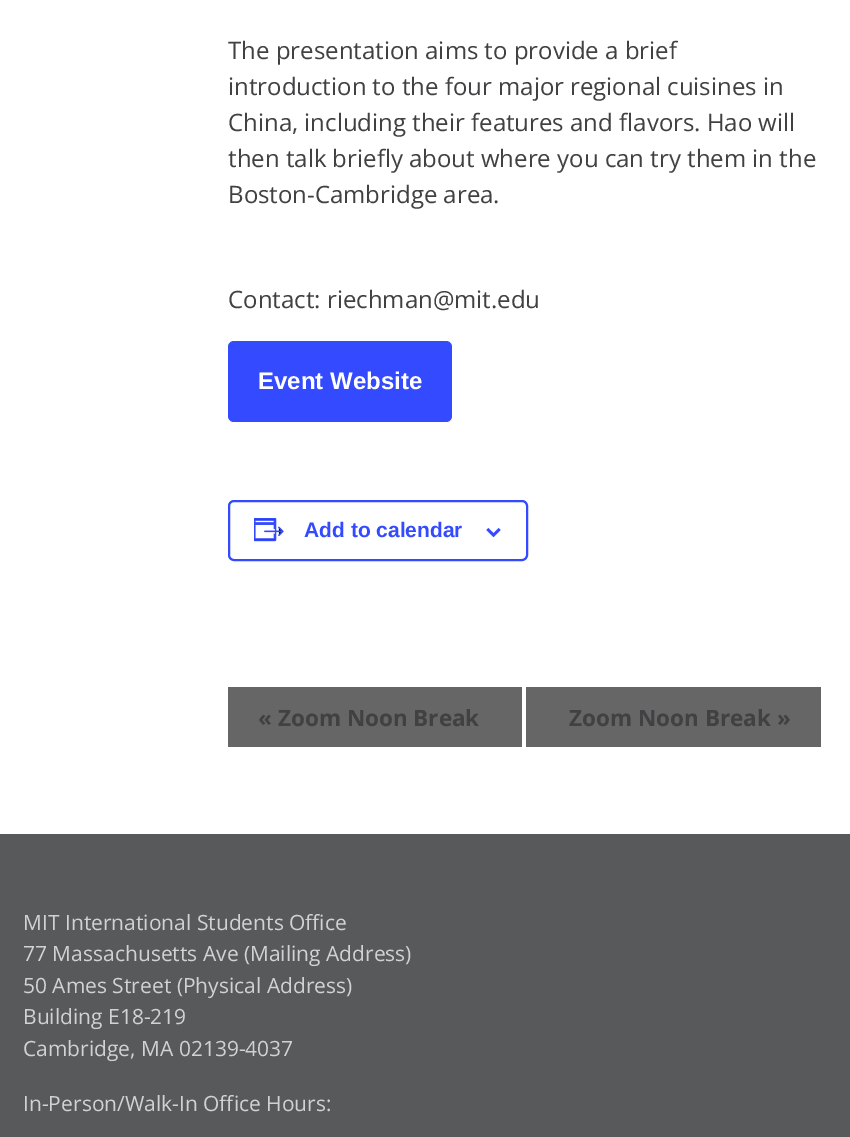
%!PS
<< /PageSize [850 1137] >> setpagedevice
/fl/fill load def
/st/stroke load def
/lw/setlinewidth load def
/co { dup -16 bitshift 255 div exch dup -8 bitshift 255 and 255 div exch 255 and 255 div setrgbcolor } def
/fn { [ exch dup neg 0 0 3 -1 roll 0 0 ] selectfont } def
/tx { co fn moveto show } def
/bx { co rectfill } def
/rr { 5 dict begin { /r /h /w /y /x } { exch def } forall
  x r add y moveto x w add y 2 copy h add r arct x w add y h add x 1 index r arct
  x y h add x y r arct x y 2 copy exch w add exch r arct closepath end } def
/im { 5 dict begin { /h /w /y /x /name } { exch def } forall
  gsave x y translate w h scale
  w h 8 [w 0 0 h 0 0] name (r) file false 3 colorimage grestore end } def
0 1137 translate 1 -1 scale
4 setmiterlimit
0 0 850 1137 16#FFFFFF bx
16#334AFF co
228 341 224 81 6 rr fl
2 lw
229 501 298 59 5 rr st
(media/1.raw) 254 518 30 24 im
(media/2.raw) 486 528 15 9 im
228 687 294 60 16#666666 bx
526 687 295 60 16#666666 bx
0 834 850 303 16#58595B bx
(The presentation aims to provide a brief) 228 59 /OpenSans-Regular 24 16#414042 tx
(introduction to the four major regional cuisines in) 228 95 /OpenSans-Regular 24 16#414042 tx
(China, including their features and flavors. Hao will) 228 131 /OpenSans-Regular 24 16#414042 tx
(then talk briefly about where you can try them in the) 228 167 /OpenSans-Regular 24 16#414042 tx
(Boston-Cambridge area.) 228 203 /OpenSans-Regular 24 16#414042 tx
(Contact: riechman@mit.edu) 228 308 /OpenSans-Regular 24 16#414042 tx
(Event Website) 258 389 /LiberationSans-Bold 24 16#FFFFFF tx
(Add to calendar) 304 537 /LiberationSans-Bold 21 16#334AFF tx
(« Zoom Noon Break) 258 726 /OpenSans-Bold 22.5 16#414042 tx
(Zoom Noon Break ») 569 726 /OpenSans-Bold 22.5 16#414042 tx
(MIT International Students Office) 23 930 /OpenSans-Regular 21 16#D0D2D3 tx
(77 Massachusetts Ave \(Mailing Address\)) 23 961 /OpenSans-Regular 21 16#D0D2D3 tx
(50 Ames Street \(Physical Address\)) 23 993 /OpenSans-Regular 21 16#D0D2D3 tx
(Building E18-219) 23 1024 /OpenSans-Regular 21 16#D0D2D3 tx
(Cambridge, MA 02139-4037) 23 1056 /OpenSans-Regular 21 16#D0D2D3 tx
(In-Person/Walk-In Office Hours:) 23 1111 /OpenSans-Regular 21 16#D0D2D3 tx
showpage
